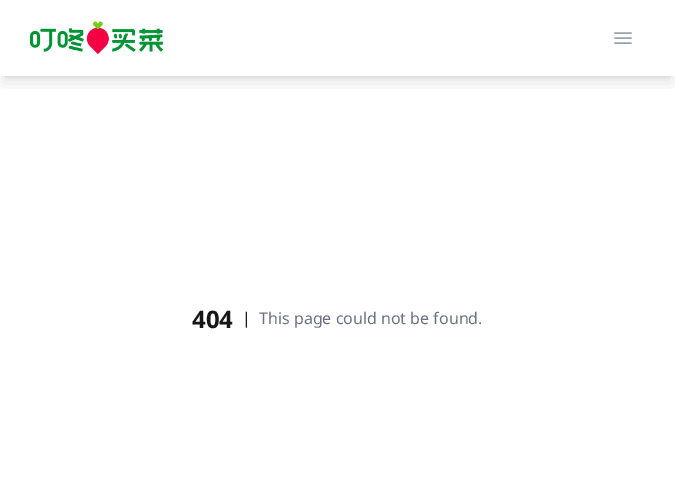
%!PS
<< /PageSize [675 486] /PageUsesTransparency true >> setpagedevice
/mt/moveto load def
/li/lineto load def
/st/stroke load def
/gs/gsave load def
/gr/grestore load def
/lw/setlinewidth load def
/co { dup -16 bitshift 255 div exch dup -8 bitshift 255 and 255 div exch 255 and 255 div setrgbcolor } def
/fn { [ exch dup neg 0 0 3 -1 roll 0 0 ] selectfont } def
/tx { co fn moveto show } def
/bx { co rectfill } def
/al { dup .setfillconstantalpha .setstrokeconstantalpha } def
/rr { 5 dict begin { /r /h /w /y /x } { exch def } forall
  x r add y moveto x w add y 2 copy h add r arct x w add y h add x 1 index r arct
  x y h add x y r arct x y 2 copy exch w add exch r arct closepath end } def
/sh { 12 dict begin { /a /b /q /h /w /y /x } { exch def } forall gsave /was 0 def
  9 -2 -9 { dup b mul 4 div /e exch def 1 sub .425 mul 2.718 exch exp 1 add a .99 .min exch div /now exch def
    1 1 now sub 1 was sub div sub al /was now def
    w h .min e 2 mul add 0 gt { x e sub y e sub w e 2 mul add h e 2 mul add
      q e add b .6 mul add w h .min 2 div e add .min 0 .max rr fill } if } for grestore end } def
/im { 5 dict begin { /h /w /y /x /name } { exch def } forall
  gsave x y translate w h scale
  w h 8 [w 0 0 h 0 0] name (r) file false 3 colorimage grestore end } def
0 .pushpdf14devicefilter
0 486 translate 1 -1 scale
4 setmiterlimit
0 0 675 486 16#FFFFFF bx
gs
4 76 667 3 rectclip
16#000000 co
4 8 667 68 0 3 .1 sh
gr
gs
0 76 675 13 rectclip
16#000000 co
3 13 669 70 0 7.5 .1 sh
gr
(media/1.raw) 30 21 133 33 im
16#99A1AF co
1.5 lw
1 setlinecap
1 setlinejoin
615 33 mt 631 33 li 615 38 mt 631 38 li 615 43 mt 631 43 li st
(404) 192 328 /NotoSans-Bold 24 16#171717 tx
(|) 242 324 /NotoSans-Regular 16 16#171717 tx
(This page could not be found.) 259 324 /NotoSans-Regular 16 16#6A7282 tx
.poppdf14devicefilter showpage
